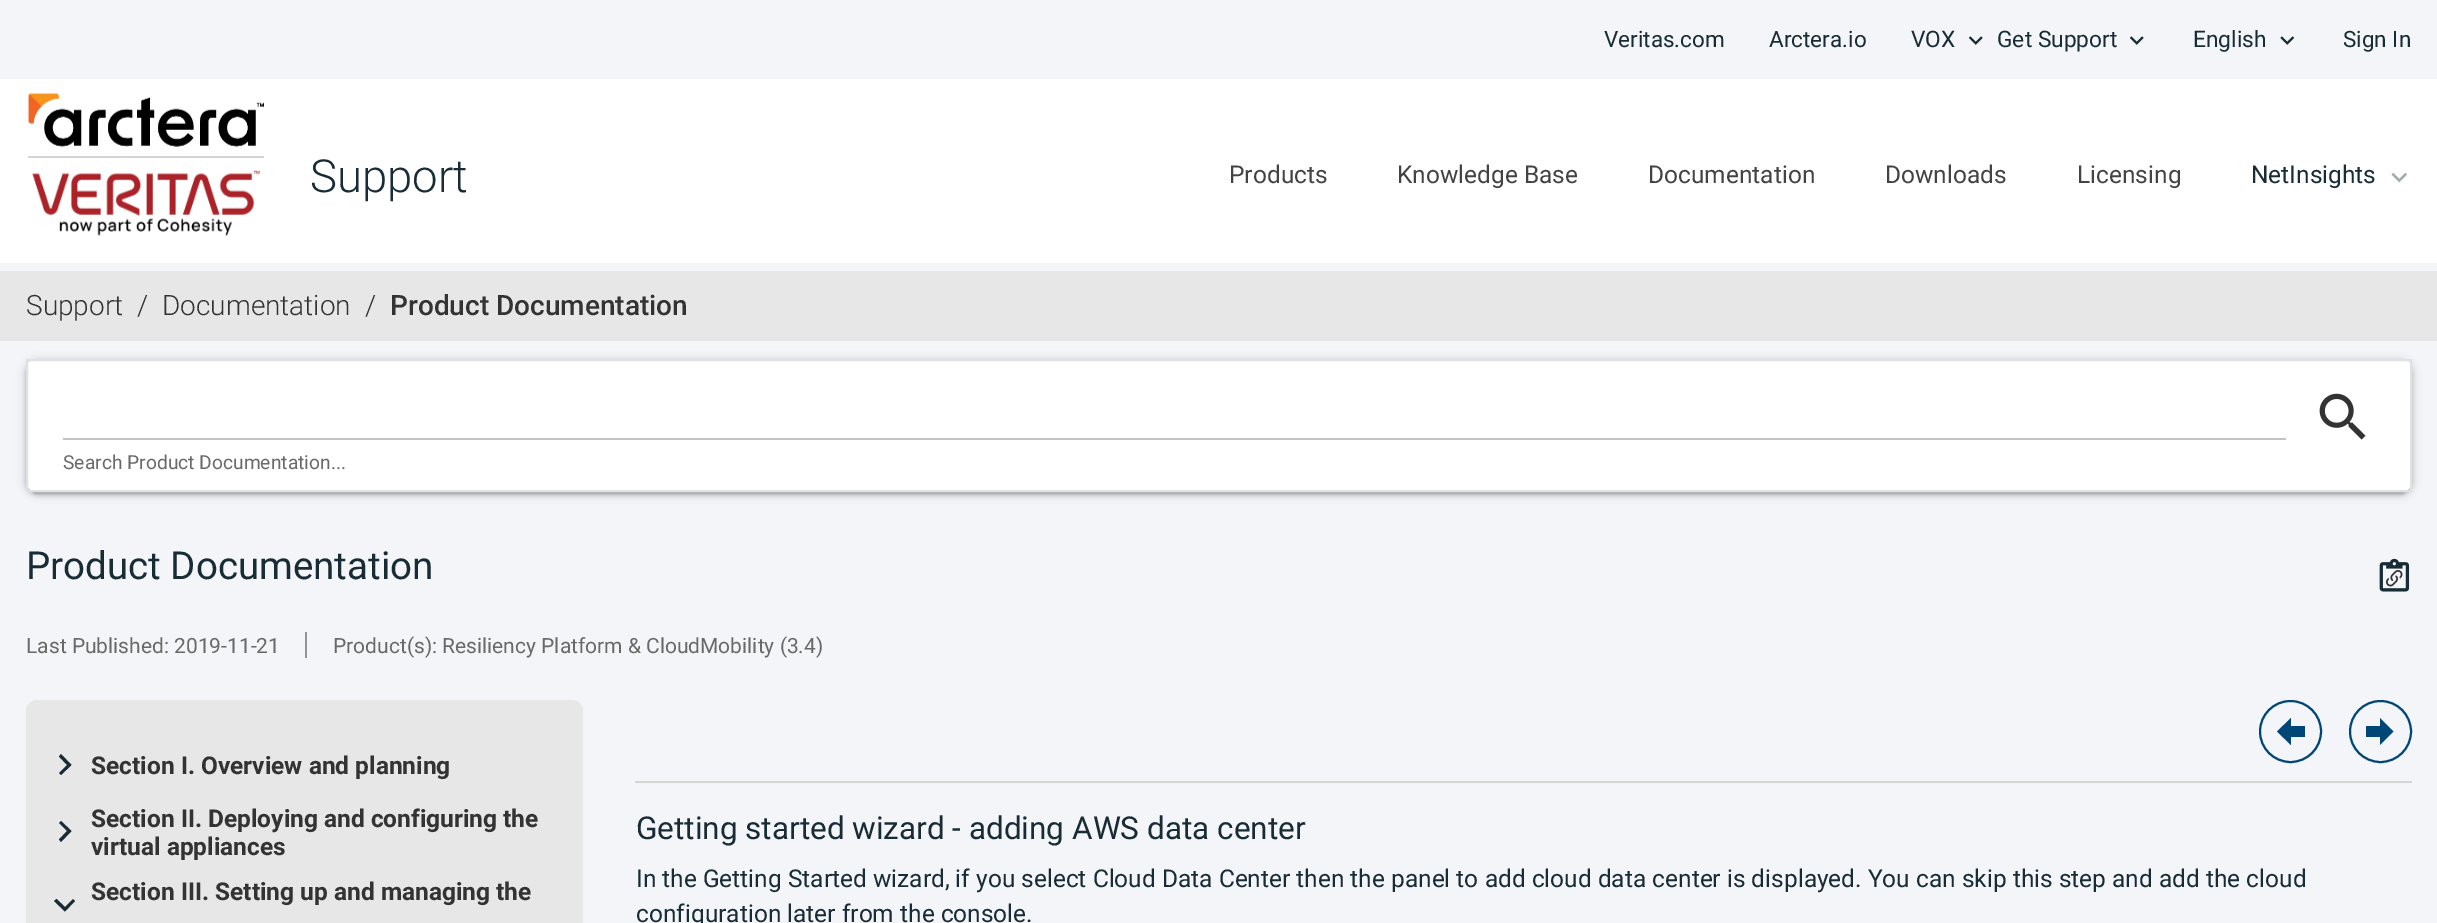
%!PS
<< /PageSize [2437 923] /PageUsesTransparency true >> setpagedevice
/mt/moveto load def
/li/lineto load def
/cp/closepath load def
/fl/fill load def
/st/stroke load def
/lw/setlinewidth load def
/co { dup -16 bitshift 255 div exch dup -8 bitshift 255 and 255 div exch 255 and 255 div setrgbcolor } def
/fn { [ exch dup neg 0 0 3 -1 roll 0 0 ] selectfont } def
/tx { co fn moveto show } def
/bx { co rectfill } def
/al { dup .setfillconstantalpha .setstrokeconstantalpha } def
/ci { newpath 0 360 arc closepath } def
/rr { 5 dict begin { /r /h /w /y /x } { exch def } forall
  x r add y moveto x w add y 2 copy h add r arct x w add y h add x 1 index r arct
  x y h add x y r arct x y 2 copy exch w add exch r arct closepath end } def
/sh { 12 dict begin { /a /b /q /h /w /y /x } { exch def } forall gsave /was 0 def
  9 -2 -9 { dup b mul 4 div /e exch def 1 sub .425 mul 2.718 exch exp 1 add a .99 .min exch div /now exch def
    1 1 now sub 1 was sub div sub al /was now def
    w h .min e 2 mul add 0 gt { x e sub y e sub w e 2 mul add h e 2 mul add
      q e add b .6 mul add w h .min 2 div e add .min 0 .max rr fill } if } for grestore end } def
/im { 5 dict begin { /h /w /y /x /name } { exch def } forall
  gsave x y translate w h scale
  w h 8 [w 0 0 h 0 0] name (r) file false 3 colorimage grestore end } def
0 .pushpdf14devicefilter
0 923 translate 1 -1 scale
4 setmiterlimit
0 0 2437 923 16#F4F5F8 bx
(media/1.raw) 1968 36 15 9 im
(media/1.raw) 2129 36 15 9 im
(media/2.raw) 2280 36 15 9 im
0 79 2437 184 16#FFFFFF bx
(media/3.raw) 28 92 236 55 im
28 156 236 2 16#D5D5D5 bx
(media/4.raw) 32 170 228 66 im
(media/5.raw) 2391 172 16 11 im
0 271 2437 70 16#E7E7E7 bx
16#000000 co
30 368 2378 126 7 1 .12 sh
26 362 2386 133 11 2 .14 sh
26 361 2386 133 11 4.5 .2 sh
16#FFFFFF co
26 359 2386 133 11 rr fl
16#DEE2E6 co
2 lw
27 360 2384 131 rectstroke
63 438 2223 2 16#C2C2C2 bx
(media/6.raw) 2319 393 47 47 im
(media/7.raw) 2379 558 31 34 im
(media/8.raw) 2386 570 17 17 im
305 632 2 26 16#939393 bx
16#E7E7E7 co
26 700 557 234 11 rr fl
16#182C35 co
59 773 mt 67 765 li 59 756.5 li 61 754 li 71.5 765 li 61 775 li cp fl
59 839.5 mt 67 831 li 59 823 li 61 821 li 71.5 831 li 61 842 li cp fl
56.5 899 mt 65 907 li 73 899 li 75 901 li 65 911.5 li 54 901 li cp fl
635 781 1777 2 16#D5D5D5 bx
16#004677 co
2290.5 731.5 30.5 ci st
2305 726 mt 2305 737 li 2291 737 li 2291 745 li 2277 731.5 li 2291 718 li 2291 726 li cp fl
2380.5 731.5 30.5 ci st
2366 737 mt 2366 726 li 2380 726 li 2380 718 li 2393.5 731.5 li 2380 745 li 2380 737 li cp fl
(Veritas.com) 1604 47 /Roboto-Regular 22.5 16#182C35 tx
(Arctera.io) 1769 47 /Roboto-Regular 22.5 16#182C35 tx
(VOX) 1911 47 /Roboto-Regular 22.75 16#182C35 tx
(Get Support) 1997 47 /Roboto-Regular 22.75 16#182C35 tx
(English) 2193 47 /Roboto-Regular 22.75 16#182C35 tx
(Sign In) 2343 47 /Roboto-Regular 22.5 16#182C35 tx
(Support) 310 192 /Roboto-Light 45.5 16#182C35 tx
(Products) 1229 183 /Roboto-Regular 24.5 16#434343 tx
(Knowledge Base) 1397 183 /Roboto-Regular 24.5 16#434343 tx
(Documentation) 1648 183 /Roboto-Regular 24.5 16#434343 tx
(Downloads) 1885 183 /Roboto-Regular 24.5 16#434343 tx
(Licensing) 2077 183 /Roboto-Regular 24.5 16#434343 tx
(NetInsights) 2251 183 /Roboto-Regular 24.5 16#182C35 tx
(Support) 26 315 /Roboto-Light 28 16#333333 tx
(/) 137 315 /Roboto-Light 28 16#333333 tx
(Documentation) 162 315 /Roboto-Light 28 16#333333 tx
(/) 365 315 /Roboto-Light 28 16#333333 tx
(Product Documentation) 390 315 /Roboto-Medium 28 16#333333 tx
(Search Product Documentation...) 63 469 /Roboto-Regular 19.25 16#696969 tx
(Product Documentation) 26 579 /Roboto-Regular 38.5 16#182C35 tx
(Last Published: 2019-11-21) 26 653 /Roboto-Regular 21 16#696969 tx
(Product\(s\): Resiliency Platform & CloudMobility \(3.4\)) 333 653 /Roboto-Regular 21 16#696969 tx
(Section I. Overview and planning) 91 774 /Roboto-Bold 24.5 16#333333 tx
(Section II. Deploying and configuring the) 91 827 /Roboto-Bold 24.5 16#333333 tx
(virtual appliances) 91 855 /Roboto-Bold 24.5 16#333333 tx
(Section III. Setting up and managing the) 91 900 /Roboto-Bold 24.5 16#333333 tx
(Getting started wizard - adding AWS data center) 636 839 /Roboto-Regular 31.5 16#182C35 tx
(In the Getting Started wizard, if you select Cloud Data Center then the panel to add cloud data center is displayed. You can skip this step and add the cloud) 636 887 /Roboto-Regular 24.5 16#182C35 tx
(configuration later from the console.) 636 922 /Roboto-Regular 24.5 16#182C35 tx
.poppdf14devicefilter showpage
